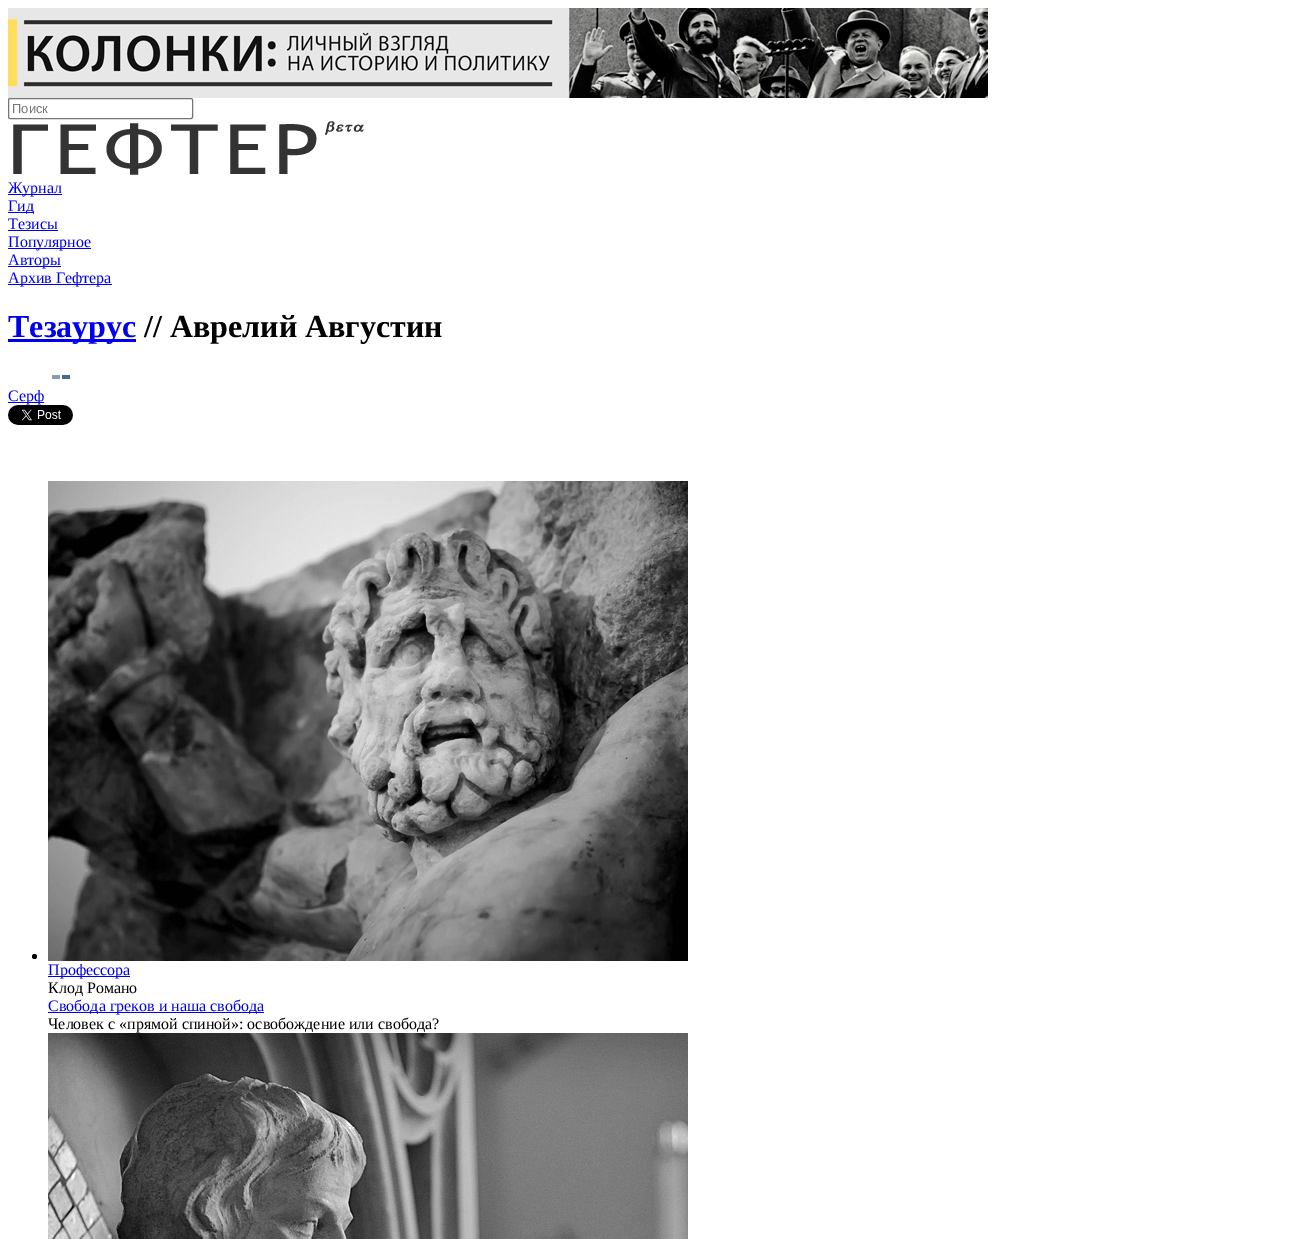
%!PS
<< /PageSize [1303 1239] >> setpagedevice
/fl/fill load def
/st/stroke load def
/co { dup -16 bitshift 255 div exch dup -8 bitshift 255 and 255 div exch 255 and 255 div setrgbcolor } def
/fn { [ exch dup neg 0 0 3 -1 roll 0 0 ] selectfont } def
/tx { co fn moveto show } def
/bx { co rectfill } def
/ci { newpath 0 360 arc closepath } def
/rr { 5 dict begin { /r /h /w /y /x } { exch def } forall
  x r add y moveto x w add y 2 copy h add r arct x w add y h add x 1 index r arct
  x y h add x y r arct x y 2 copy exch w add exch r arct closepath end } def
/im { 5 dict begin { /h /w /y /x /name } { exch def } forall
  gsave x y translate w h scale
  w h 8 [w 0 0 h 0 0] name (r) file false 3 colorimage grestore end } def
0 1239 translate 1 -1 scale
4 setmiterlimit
0 0 1303 1239 16#FFFFFF bx
(media/1.raw) 8 8 980 90 im
16#767676 co
8.5 98.5 184 20 1.5 rr st
(media/2.raw) 13 121 351 54 im
8 194 54 1 16#0000EE bx
8 212 26 1 16#0000EE bx
8 230 50 1 16#0000EE bx
8 248 83 1 16#0000EE bx
8 266 53 1 16#0000EE bx
8 284 104 1 16#0000EE bx
8 339 128 3 16#0000EE bx
(media/3.raw) 52 375 18 4 im
8 402 36 1 16#0000EE bx
(media/4.raw) 8 405 65 20 im
16#000000 co
34.5 956.5 2.5 ci fl
(media/5.raw) 48 481 640 480 im
48 976 82 1 16#0000EE bx
48 1012 216 1 16#0000EE bx
(media/6.raw) 48 1033 640 206 im
(Поиск) 12 113 /LiberationSans-Regular 13 16#757575 tx
(Журнал) 8 193 /LiberationSerif-Regular 16 16#0000EE tx
(Гид) 8 211 /LiberationSerif-Regular 16 16#0000EE tx
(Тезисы) 8 229 /LiberationSerif-Regular 16 16#0000EE tx
(Популярное) 8 247 /LiberationSerif-Regular 16 16#0000EE tx
(Авторы) 8 265 /LiberationSerif-Regular 16 16#0000EE tx
(Архив Гефтера) 8 283 /LiberationSerif-Regular 16 16#0000EE tx
(Тезаурус) 8 337 /LiberationSerif-Bold 32 16#0000EE tx
(// Аврелий Августин) 144 337 /LiberationSerif-Bold 32 16#000000 tx
(Серф) 8 401 /LiberationSerif-Regular 16 16#0000EE tx
(Профессора) 48 975 /LiberationSerif-Regular 16 16#0000EE tx
(Клод Романо) 48 993 /LiberationSerif-Regular 16 16#000000 tx
(Свобода греков и наша свобода) 48 1011 /LiberationSerif-Regular 16 16#0000EE tx
(Человек с «прямой спиной»: освобождение или свобода?) 48 1029 /LiberationSerif-Regular 16 16#000000 tx
showpage
